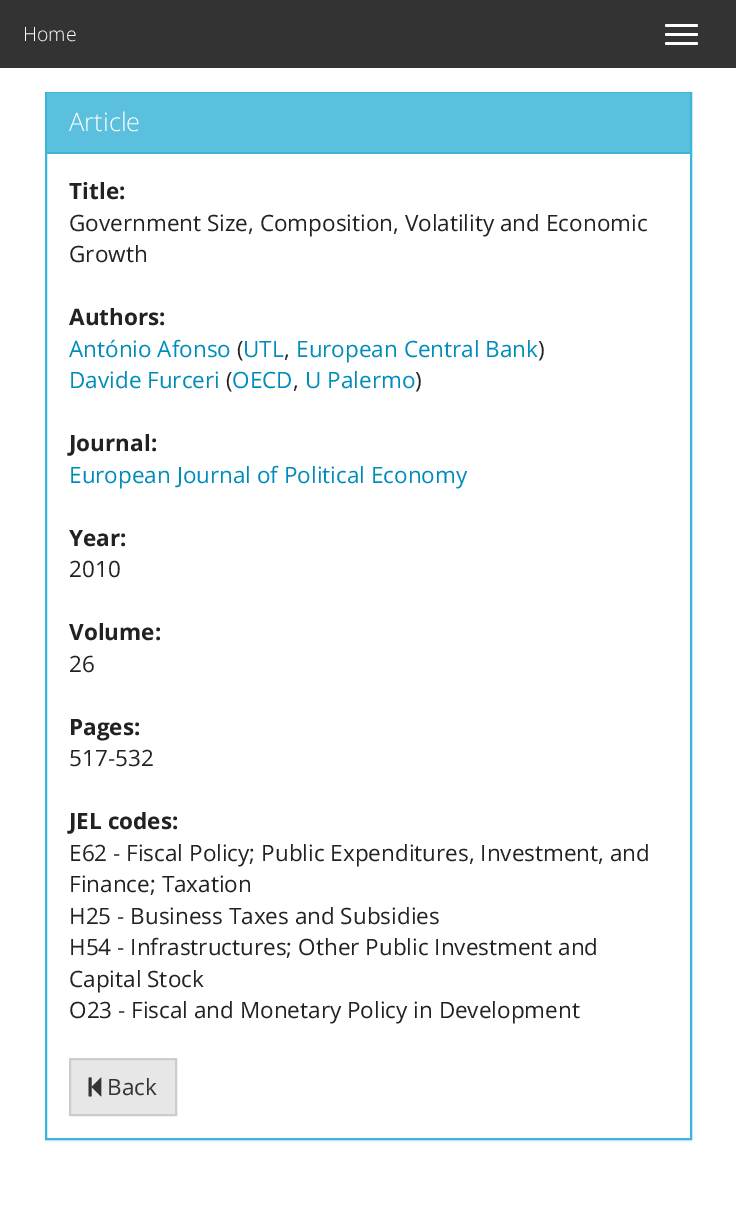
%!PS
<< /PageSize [736 1222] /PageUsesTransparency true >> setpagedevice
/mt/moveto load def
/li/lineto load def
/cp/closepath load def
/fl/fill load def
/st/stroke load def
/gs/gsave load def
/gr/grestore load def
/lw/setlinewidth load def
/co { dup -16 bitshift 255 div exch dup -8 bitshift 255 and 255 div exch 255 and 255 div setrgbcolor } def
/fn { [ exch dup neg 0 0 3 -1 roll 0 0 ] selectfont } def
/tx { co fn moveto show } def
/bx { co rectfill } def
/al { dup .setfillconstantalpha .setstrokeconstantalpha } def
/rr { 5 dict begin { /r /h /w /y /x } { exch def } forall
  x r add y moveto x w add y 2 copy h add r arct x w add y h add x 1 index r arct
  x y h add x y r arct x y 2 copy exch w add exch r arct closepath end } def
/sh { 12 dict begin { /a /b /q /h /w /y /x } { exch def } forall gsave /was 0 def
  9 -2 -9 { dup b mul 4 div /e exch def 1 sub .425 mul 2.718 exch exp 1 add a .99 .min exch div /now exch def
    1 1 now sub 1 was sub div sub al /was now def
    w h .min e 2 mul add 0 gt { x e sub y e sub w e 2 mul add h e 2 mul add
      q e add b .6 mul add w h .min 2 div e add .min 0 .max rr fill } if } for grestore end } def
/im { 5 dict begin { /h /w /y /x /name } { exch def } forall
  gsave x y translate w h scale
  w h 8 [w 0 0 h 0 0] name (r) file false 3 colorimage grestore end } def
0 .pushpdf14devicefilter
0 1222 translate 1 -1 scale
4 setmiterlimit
0 0 736 1222 16#FFFFFF bx
0 0 736 68 16#333333 bx
16#FFFFFF co
665 24 33 3 1.5 rr fl
665 33 33 3 1.5 rr fl
665 42 33 3 1.5 rr fl
16#000000 co
45 93 647 1049 0 1 .05 sh
47 154 643 984 16#FFFFFF bx
16#3DB5D8 co
2 lw
46 93 645 1046 rectstroke
47 93 643 59 16#5BC0DE bx
47 152 643 2 16#3DB5D8 bx
16#E7E7E7 co
70 1059 mt 176 1059 li 176 1115 li 70 1115 li cp gs fl gr
16#CCCCCC co
st
(media/1.raw) 88 1077 14 20 im
(Home) 23 41 /OpenSans-Light 19.5 16#FFFFFF tx
(Article) 69 131 /OpenSans-Light 25.5 16#FFFFFF tx
(Title:) 69 199 /OpenSans-Bold 22.5 16#222222 tx
(Government Size, Composition, Volatility and Economic) 69 231 /OpenSans-Regular 22.5 16#222222 tx
(Growth) 69 262 /OpenSans-Regular 22.5 16#222222 tx
(Authors:) 69 325 /OpenSans-Bold 22.5 16#222222 tx
(António Afonso) 69 357 /OpenSans-Regular 22.5 16#008CBA tx
(\() 237 357 /OpenSans-Regular 22.5 16#222222 tx
(UTL) 243 357 /OpenSans-Regular 22.5 16#008CBA tx
(,) 284 357 /OpenSans-Regular 22.5 16#222222 tx
(European Central Bank) 296 357 /OpenSans-Regular 22.5 16#008CBA tx
(\)) 538 357 /OpenSans-Regular 22.5 16#222222 tx
(Davide Furceri) 69 388 /OpenSans-Regular 22.5 16#008CBA tx
(\() 226 388 /OpenSans-Regular 22.5 16#222222 tx
(OECD) 232 388 /OpenSans-Regular 22.5 16#008CBA tx
(,) 293 388 /OpenSans-Regular 22.5 16#222222 tx
(U Palermo) 305 388 /OpenSans-Regular 22.5 16#008CBA tx
(\)) 415 388 /OpenSans-Regular 22.5 16#222222 tx
(Journal:) 69 451 /OpenSans-Bold 22.5 16#222222 tx
(European Journal of Political Economy) 69 483 /OpenSans-Regular 22.5 16#008CBA tx
(Year:) 69 546 /OpenSans-Bold 22.5 16#222222 tx
(2010) 69 577 /OpenSans-Regular 22.5 16#222222 tx
(Volume:) 69 640 /OpenSans-Bold 22.5 16#222222 tx
(26) 69 672 /OpenSans-Regular 22.5 16#222222 tx
(Pages:) 69 735 /OpenSans-Bold 22.5 16#222222 tx
(517-532) 69 766 /OpenSans-Regular 22.5 16#222222 tx
(JEL codes:) 69 829 /OpenSans-Bold 22.5 16#222222 tx
(E62 - Fiscal Policy; Public Expenditures, Investment, and) 69 861 /OpenSans-Regular 22.5 16#222222 tx
(Finance; Taxation) 69 892 /OpenSans-Regular 22.5 16#222222 tx
(H25 - Business Taxes and Subsidies) 69 924 /OpenSans-Regular 22.5 16#222222 tx
(H54 - Infrastructures; Other Public Investment and) 69 955 /OpenSans-Regular 22.5 16#222222 tx
(Capital Stock) 69 987 /OpenSans-Regular 22.5 16#222222 tx
(O23 - Fiscal and Monetary Policy in Development) 69 1018 /OpenSans-Regular 22.5 16#222222 tx
(Back) 107 1095 /OpenSans-Regular 22.5 16#333333 tx
.poppdf14devicefilter showpage
